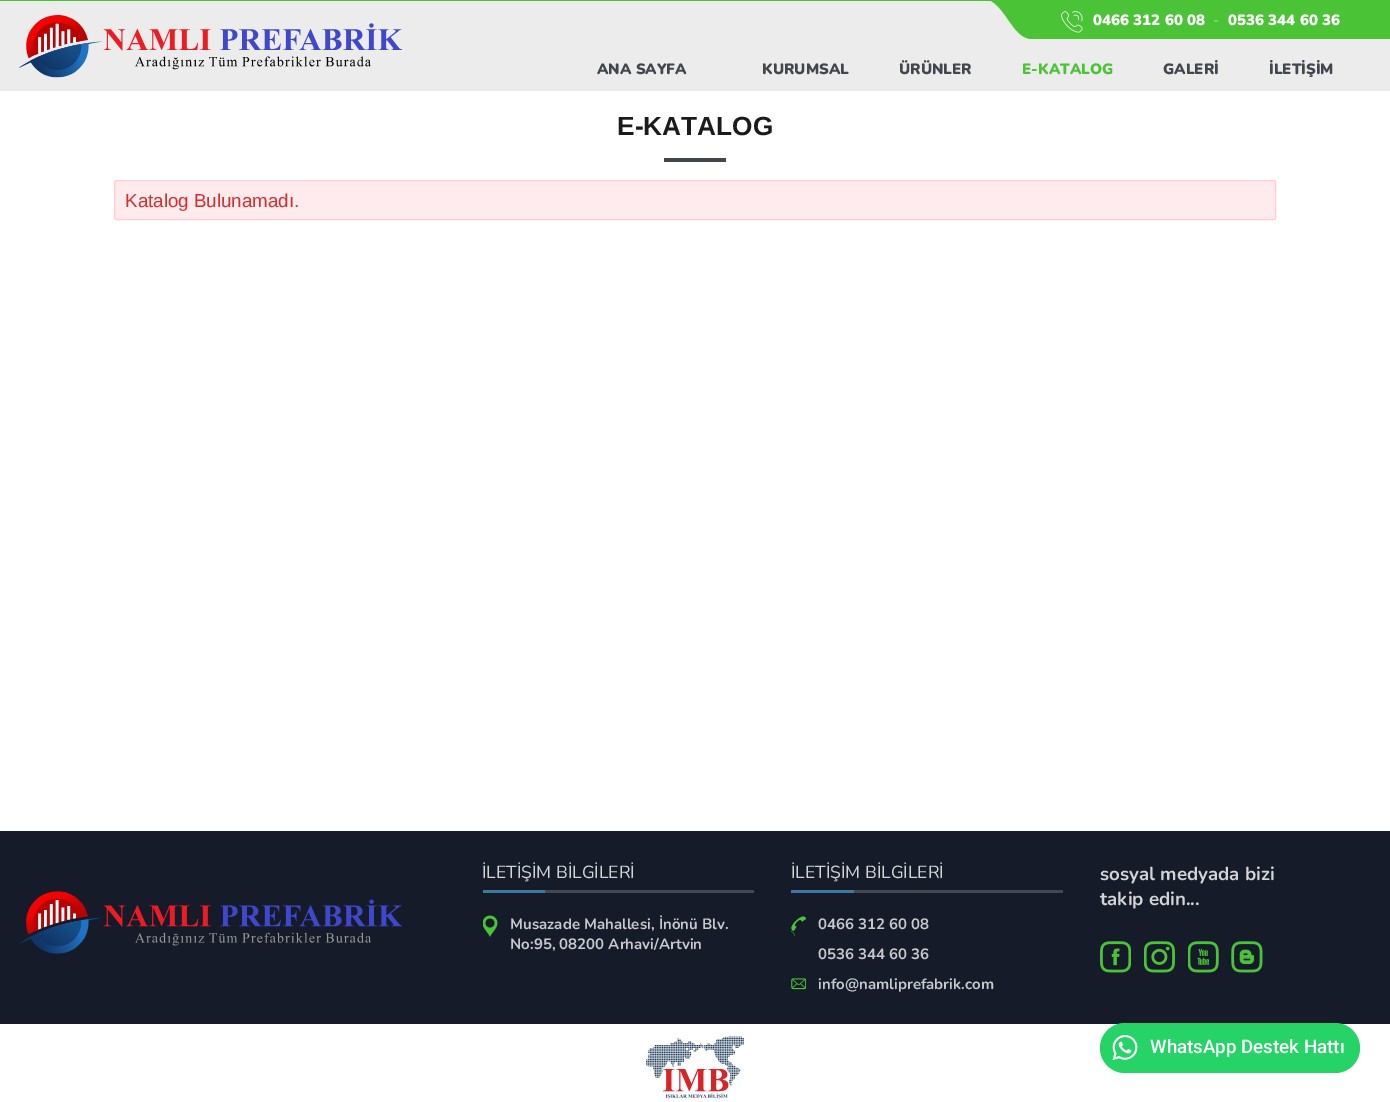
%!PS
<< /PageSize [1390 1102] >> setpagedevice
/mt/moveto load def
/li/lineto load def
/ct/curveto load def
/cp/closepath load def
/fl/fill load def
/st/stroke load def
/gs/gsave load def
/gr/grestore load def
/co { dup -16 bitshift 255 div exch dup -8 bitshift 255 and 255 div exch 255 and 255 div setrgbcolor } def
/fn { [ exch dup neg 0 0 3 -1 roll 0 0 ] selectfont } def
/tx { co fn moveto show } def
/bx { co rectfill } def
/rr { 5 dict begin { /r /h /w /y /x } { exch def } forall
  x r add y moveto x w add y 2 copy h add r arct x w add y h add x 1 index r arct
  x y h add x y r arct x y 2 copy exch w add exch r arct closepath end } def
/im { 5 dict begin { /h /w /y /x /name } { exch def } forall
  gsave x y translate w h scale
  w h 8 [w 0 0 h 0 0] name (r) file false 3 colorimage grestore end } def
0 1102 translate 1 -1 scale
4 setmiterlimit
0 0 1390 1102 16#FFFFFF bx
0 1 1390 90 16#ECECEC bx
0 0 1390 1 16#4BC336 bx
1041 1 349 38 16#4BC336 bx
gs
991 1 50 38 rectclip
1326 39 mt 1032 39 li 1014 39 1007 10 991 1 ct 1326 1 li cp eofill
gr
(media/1.raw) 1061 11 22 22 im
(media/2.raw) 19 15 384 63 im
664 158 62 4 16#42474D bx
16#FFEBEE co
114.5 180.5 1161 39 2 rr gs fl gr
16#FFCDD2 co
st
0 831 1390 193 16#151B29 bx
(media/3.raw) 19 891 384 63 im
483 890 62 3 16#3E77A0 bx
545 890 209 3 16#444852 bx
(media/4.raw) 483 915 15 22 im
791 890 63 3 16#3E77A0 bx
854 890 209 3 16#444852 bx
(media/5.raw) 791 916 15 21 im
(media/6.raw) 791 978 15 12 im
(media/7.raw) 1100 941 31 32 im
(media/8.raw) 1144 941 31 32 im
(media/9.raw) 1188 941 31 32 im
(media/10.raw) 1231 941 32 32 im
(media/11.raw) 646 1036 98 63 im
16#25D366 co
1100 1023 260 50 25 rr fl
(media/12.raw) 1112 1035 26 25 im
(0466 312 60 08) 1093 25 /Nunito-Black 15 16#FFFFFF tx
(-) 1213 25 /Nunito-ExtraLight 15 16#FFFFFF tx
(0536 344 60 36) 1228 25 /Nunito-Black 15 16#FFFFFF tx
(ANA SAYFA) 597 74 /Nunito-Black 15 16#42474D tx
(KURUMSAL) 762 74 /Nunito-Black 15 16#42474D tx
(ÜRÜNLER) 899 74 /Nunito-Black 15 16#42474D tx
(E-KATALOG) 1022 74 /Nunito-Black 15 16#4BC336 tx
(GALERİ) 1163 74 /Nunito-Black 15 16#42474D tx
(İLETİŞİM) 1269 74 /Nunito-Black 15 16#42474D tx
(E-KATALOG) 617 135 /LiberationSans-Bold 26.25 16#1B1B1B tx
(Katalog Bulunamadı.) 125 207 /LiberationSans-Regular 18.75 16#D32F2F tx
(İLETİŞİM BİLGİLERİ) 482 878 /Nunito-Regular 17.5 16#D1D5D6 tx
(Musazade Mahallesi, İnönü Blv.) 510 929 /Nunito-Bold 15 16#C7C9CE tx
(No:95, 08200 Arhavi/Artvin) 510 949 /Nunito-Bold 15 16#C7C9CE tx
(İLETİŞİM BİLGİLERİ) 791 878 /Nunito-Regular 17.5 16#D1D5D6 tx
(0466 312 60 08) 818 929 /Nunito-Bold 15 16#C7C9CE tx
(0536 344 60 36) 818 959 /Nunito-Bold 15 16#C7C9CE tx
(info@namliprefabrik.com) 818 989 /Nunito-Bold 15 16#C7C9CE tx
(sosyal medyada bizi) 1100 880 /Nunito-Bold 18.75 16#D1D5D6 tx
(takip edin...) 1100 905 /Nunito-Bold 18.75 16#D1D5D6 tx
(WhatsApp Destek Hattı) 1150 1053 /Roboto-Medium 18.75 16#FFFFFF tx
showpage
